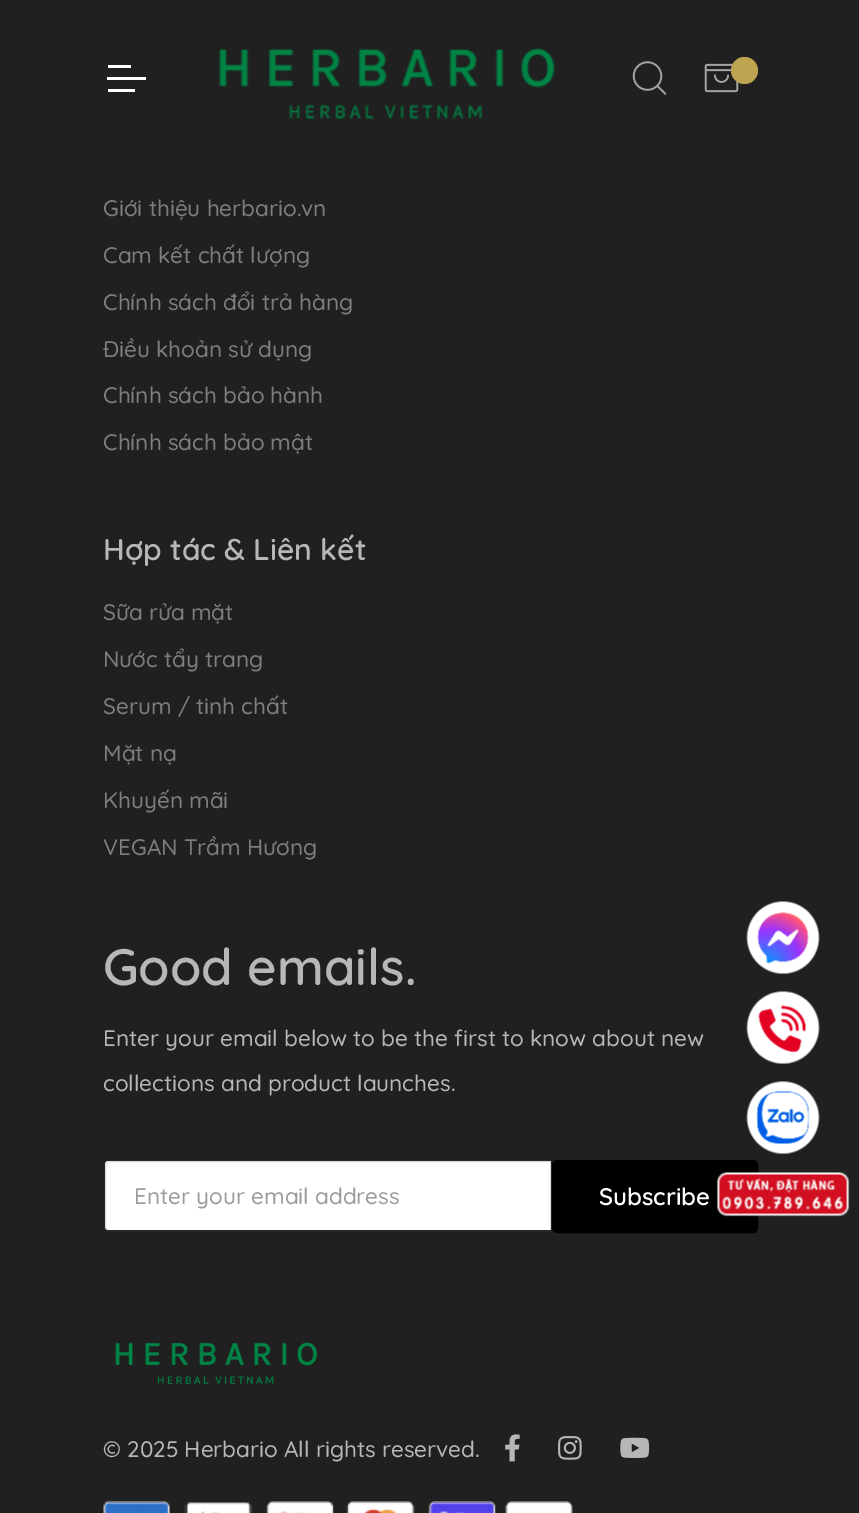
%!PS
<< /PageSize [859 1513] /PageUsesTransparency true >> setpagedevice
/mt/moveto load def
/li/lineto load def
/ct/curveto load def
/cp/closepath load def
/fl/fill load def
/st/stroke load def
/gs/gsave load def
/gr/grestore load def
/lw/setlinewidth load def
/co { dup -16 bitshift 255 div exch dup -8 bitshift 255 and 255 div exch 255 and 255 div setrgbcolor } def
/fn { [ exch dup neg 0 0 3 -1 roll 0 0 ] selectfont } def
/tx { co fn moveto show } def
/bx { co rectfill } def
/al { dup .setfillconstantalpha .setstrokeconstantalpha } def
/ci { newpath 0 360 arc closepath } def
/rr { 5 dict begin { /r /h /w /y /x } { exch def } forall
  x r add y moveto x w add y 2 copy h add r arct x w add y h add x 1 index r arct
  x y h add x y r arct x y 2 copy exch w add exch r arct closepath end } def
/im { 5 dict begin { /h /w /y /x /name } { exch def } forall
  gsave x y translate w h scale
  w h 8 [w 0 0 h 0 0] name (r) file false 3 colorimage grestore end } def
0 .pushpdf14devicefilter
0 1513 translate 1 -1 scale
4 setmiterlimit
0 0 859 1513 16#202020 bx
107 77 39 3 16#FFFFFF bx
108 65 23 3 16#FFFFFF bx
108 89 27 3 16#FFFFFF bx
(media/1.raw) 219 48 337 72 im
(media/2.raw) 632 61 35 34 im
(media/3.raw) 704 63 35 30 im
16#BEA351 co
744.5 70.5 13.5 ci fl
16#FFFFFF co
108 1161 mt 551 1161 li 551 1230 li 108 1230 li 106.5 1230 105 1228.5 105 1227 ct 105 1164 li 105 1162.5 106.5 1161 108 1161 ct cp fl
0.2 al
16#3F4A3C co
2 lw
109 1161 mt 551 1161 li 551 1231 li 109 1231 li 107 1231 105 1229 105 1227 ct 105 1165 li 105 1163 107 1161 109 1161 ct cp st
1 al
16#000000 co
553 1161 204 71 4 rr gs fl gr
st
(media/4.raw) 115 1342 203 43 im
(media/5.raw) 505 1434 15 28 im
(media/6.raw) 558 1436 24 24 im
(media/7.raw) 620 1437 30 21 im
(media/8.raw) 103 1501 470 12 im
(media/9.raw) 746 901 74 74 im
(media/10.raw) 746 991 74 74 im
(media/11.raw) 746 1081 74 74 im
(media/12.raw) 716 1172 134 45 im
(Giới thiệu herbario.vn) 103 216 /Quicksand-Medium 22.5 16#7E7E7E tx
(Cam kết chất lượng) 103 263 /Quicksand-Medium 22.5 16#7E7E7E tx
(Chính sách đổi trả hàng) 103 310 /Quicksand-Medium 22.5 16#7E7E7E tx
(Điều khoản sử dụng) 103 357 /Quicksand-Medium 22.5 16#7E7E7E tx
(Chính sách bảo hành) 103 403 /Quicksand-Medium 22.5 16#7E7E7E tx
(Chính sách bảo mật) 103 450 /Quicksand-Medium 22.5 16#7E7E7E tx
(Hợp tác & Liên kết) 103 560 /Quicksand-SemiBold 30 16#B7B7B7 tx
(Sữa rửa mặt) 103 620 /Quicksand-Medium 22.5 16#7E7E7E tx
(Nước tẩy trang) 103 667 /Quicksand-Medium 22.5 16#7E7E7E tx
(Serum / tinh chất) 103 714 /Quicksand-Medium 22.5 16#7E7E7E tx
(Mặt nạ) 103 761 /Quicksand-Medium 22.5 16#7E7E7E tx
(Khuyến mãi) 103 808 /Quicksand-Medium 22.5 16#7E7E7E tx
(VEGAN Trầm Hương) 103 855 /Quicksand-Medium 22.5 16#7E7E7E tx
(Good emails.) 103 985 /Quicksand-SemiBold 51 16#B7B7B7 tx
(Enter your email below to be the first to know about new) 103 1046 /Quicksand-Medium 22.5 16#B7B7B7 tx
(collections and product launches.) 103 1091 /Quicksand-Medium 22.5 16#B7B7B7 tx
(Enter your email address) 134 1204 /Quicksand-Medium 22.5 16#9B9B9B tx
(Subscribe) 599 1205 /Quicksand-SemiBold 24 16#FFFFFF tx
(© 2025 Herbario All rights reserved.) 103 1457 /Quicksand-Medium 22.5 16#B7B7B7 tx
.poppdf14devicefilter showpage
